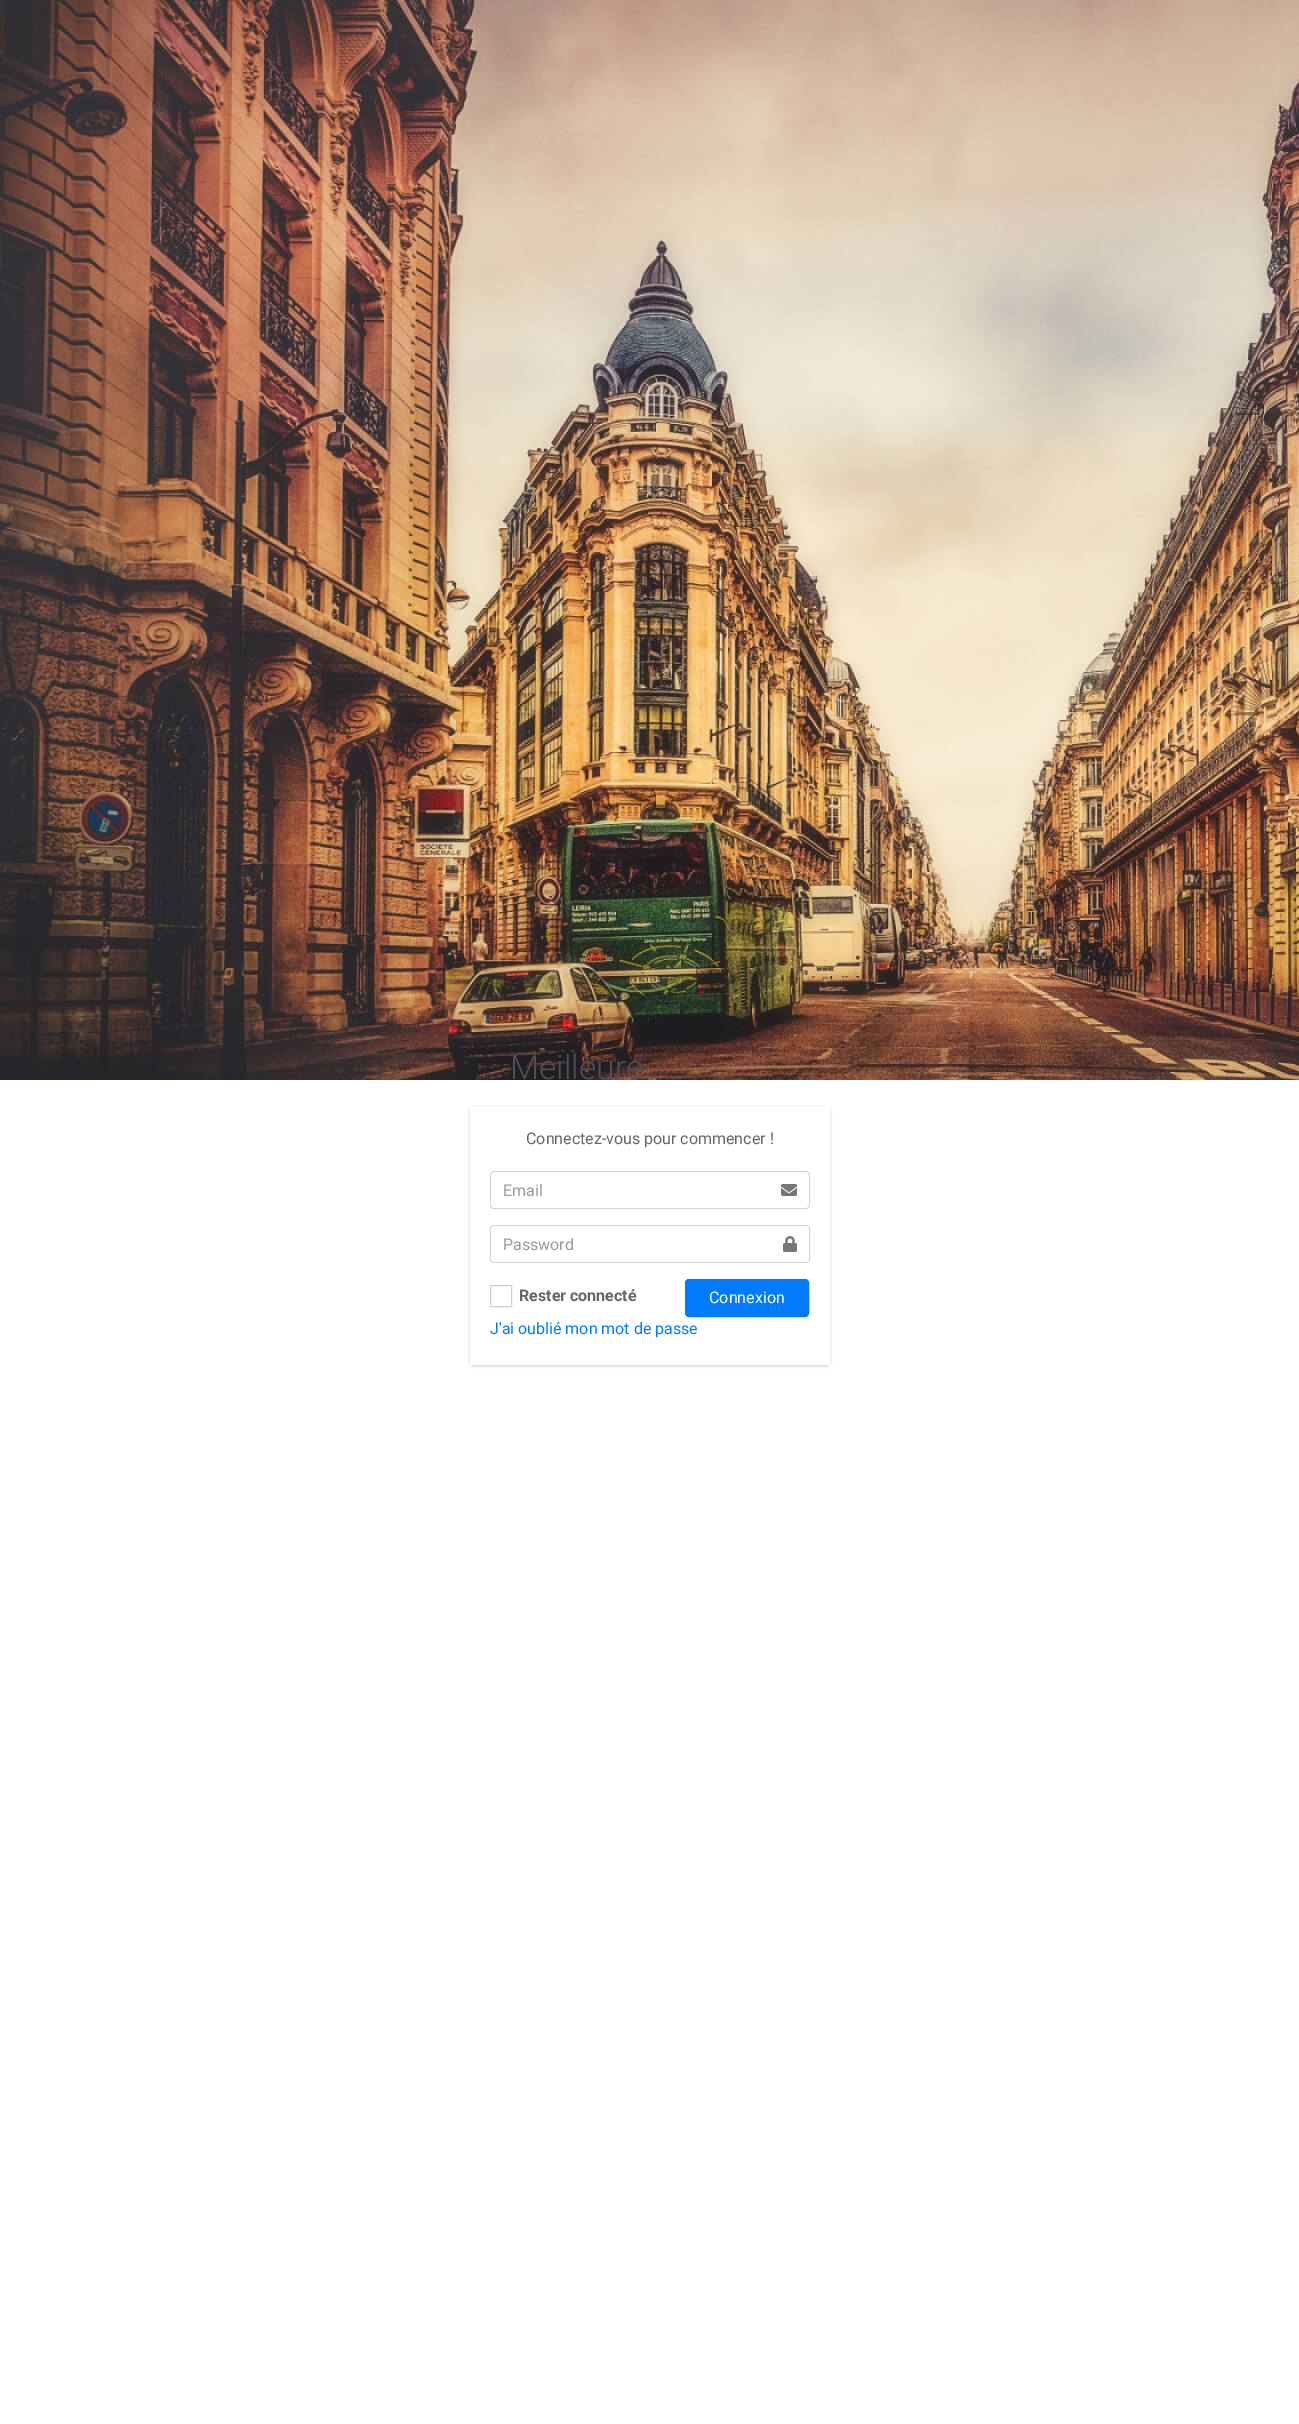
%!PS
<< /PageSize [1299 2424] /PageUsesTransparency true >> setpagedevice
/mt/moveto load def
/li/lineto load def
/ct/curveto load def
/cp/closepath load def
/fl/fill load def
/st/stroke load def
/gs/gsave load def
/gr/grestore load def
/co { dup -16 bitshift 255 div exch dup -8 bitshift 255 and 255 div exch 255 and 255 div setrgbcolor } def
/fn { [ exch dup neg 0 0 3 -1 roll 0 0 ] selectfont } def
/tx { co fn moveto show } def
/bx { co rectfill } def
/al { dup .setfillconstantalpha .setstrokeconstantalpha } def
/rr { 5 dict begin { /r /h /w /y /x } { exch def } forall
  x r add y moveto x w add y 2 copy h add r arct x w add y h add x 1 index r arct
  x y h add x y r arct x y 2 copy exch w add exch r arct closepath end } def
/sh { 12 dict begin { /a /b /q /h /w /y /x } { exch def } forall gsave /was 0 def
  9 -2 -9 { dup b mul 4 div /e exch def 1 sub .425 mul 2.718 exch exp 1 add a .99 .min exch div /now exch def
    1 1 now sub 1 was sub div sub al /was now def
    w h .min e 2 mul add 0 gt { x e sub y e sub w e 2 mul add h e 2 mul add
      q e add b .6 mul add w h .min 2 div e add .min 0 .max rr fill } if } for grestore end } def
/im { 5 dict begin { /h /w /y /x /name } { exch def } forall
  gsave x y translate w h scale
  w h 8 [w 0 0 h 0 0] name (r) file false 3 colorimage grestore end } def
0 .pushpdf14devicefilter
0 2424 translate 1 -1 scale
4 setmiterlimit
0 0 1299 2424 16#FFFFFF bx
(media/1.raw) 0 0 1299 1080 im
16#000000 co
470 1108 360 258 4 1.5 .2 sh
470 1107 360 258 16#FFFFFF bx
16#CED4DA co
769 1171 mt 806 1171 li 808 1171 810 1173 810 1175 ct 810 1205 li 810 1207 808 1209 806 1209 ct 769 1209 li cp 769 1172 mt 806 1172 li 808 1172 809 1173 809 1175 ct 809 1205 li 809 1207 808 1208 806 1208 ct 769 1208 li cp eofill
494 1171 mt 770 1171 li 770 1209 li 494 1209 li 492 1209 490 1207 490 1205 ct 490 1175 li 490 1173 492 1171 494 1171 ct cp 494 1172 mt 770 1172 li 770 1208 li 494 1208 li 492 1208 491 1207 491 1205 ct 491 1175 li 491 1173 492 1172 494 1172 ct cp eofill
(media/2.raw) 781 1184 16 12 im
771 1225 mt 806 1225 li 808 1225 810 1227 810 1229 ct 810 1259 li 810 1261 808 1263 806 1263 ct 771 1263 li cp 771 1226 mt 806 1226 li 807.5 1226 809 1227.5 809 1229 ct 809 1259 li 809 1260.5 807.5 1262 806 1262 ct 771 1262 li cp eofill
494 1225 mt 772 1225 li 772 1263 li 494 1263 li 492 1263 490 1261 490 1259 ct 490 1229 li 490 1227 492 1225 494 1225 ct cp 494 1226 mt 772 1226 li 772 1262 li 494 1262 li 492 1262 491 1261 491 1259 ct 491 1229 li 491 1227 492 1226 494 1226 ct cp eofill
(media/3.raw) 783 1236 14 16 im
16#D3CFC8 co
490.5 1285.5 21 21 rectstroke
16#007BFF co
685.5 1279.5 123 37 3.5 rr gs fl gr
st
(Meilleure) 510 1079 /Roboto-Light 33.5 16#495057 tx
(Connectez-vous pour commencer !) 526 1144 /Roboto-Regular 16 16#666666 tx
(Email) 503 1196 /Roboto-Regular 16 16#939BA2 tx
(Password) 503 1250 /Roboto-Regular 16 16#939BA2 tx
(Rester connecté) 519 1301 /Roboto-Bold 16 16#666666 tx
(Connexion) 709 1303 /Roboto-Regular 16 16#FFFFFF tx
(J'ai oublié mon mot de passe) 490 1334 /Roboto-Regular 16 16#007BFF tx
.poppdf14devicefilter showpage
